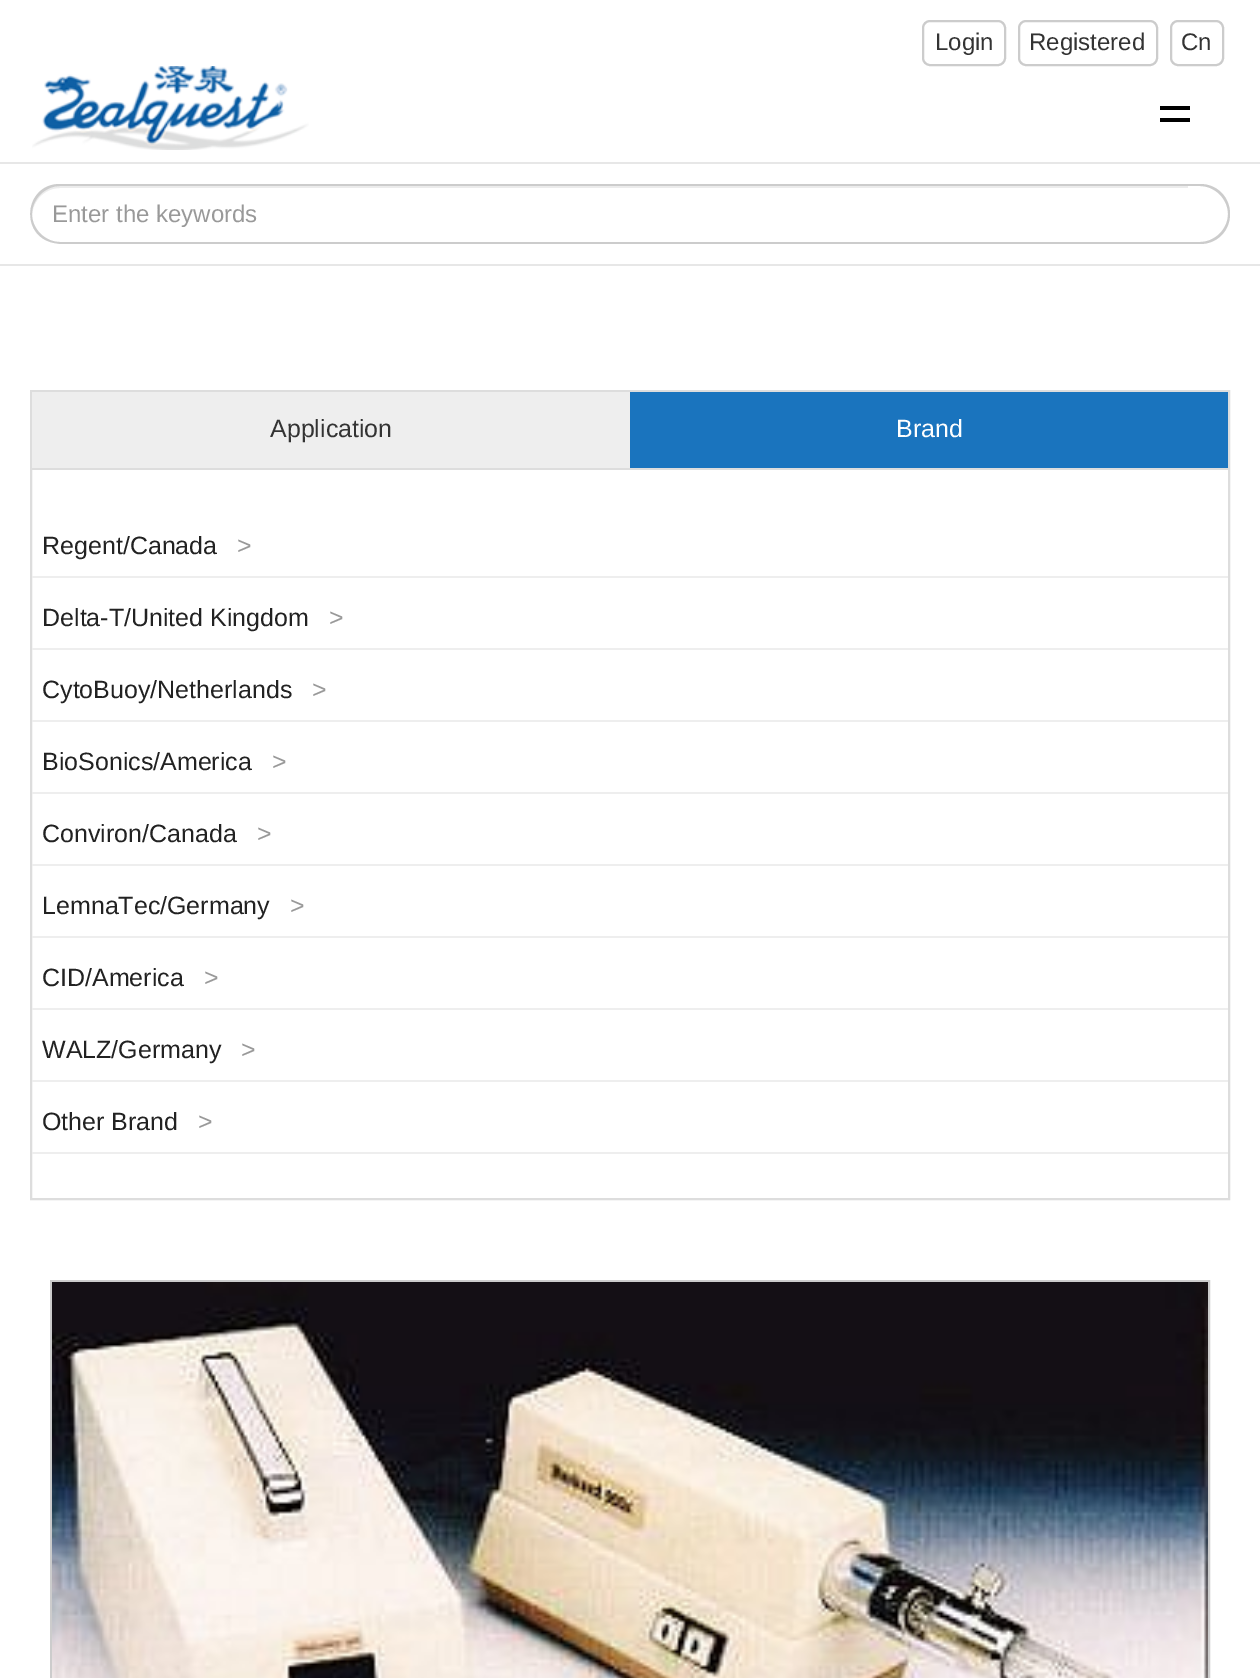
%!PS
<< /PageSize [1260 1678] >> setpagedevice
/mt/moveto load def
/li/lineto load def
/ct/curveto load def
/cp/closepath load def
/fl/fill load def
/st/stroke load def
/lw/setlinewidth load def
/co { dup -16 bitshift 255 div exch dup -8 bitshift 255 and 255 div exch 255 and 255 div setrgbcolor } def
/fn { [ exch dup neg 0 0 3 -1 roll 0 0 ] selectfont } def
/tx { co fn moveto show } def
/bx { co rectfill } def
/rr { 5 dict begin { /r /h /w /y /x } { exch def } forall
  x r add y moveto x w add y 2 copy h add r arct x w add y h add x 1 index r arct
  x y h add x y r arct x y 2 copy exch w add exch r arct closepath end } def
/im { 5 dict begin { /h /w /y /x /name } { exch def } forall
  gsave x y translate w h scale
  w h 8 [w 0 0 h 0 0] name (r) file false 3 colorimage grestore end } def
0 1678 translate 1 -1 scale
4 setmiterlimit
0 0 1260 1678 16#FFFFFF bx
16#CCCCCC co
2 lw
923 21 82 44 7 rr st
1019 21 138 44 7 rr st
1171 21 52 44 7 rr st
(media/1.raw) 32 66 277 84 im
1160 106 30 4 16#000000 bx
1160 118 30 4 16#000000 bx
0 162 1260 2 16#E7E7E7 bx
0 264 1260 2 16#E7E7E7 bx
16#ECECEC co
60 188 mt 1188 188 li 1188 186 li 60 186 li 44 186 31 199 32 215 ct 33 200 45 188 60 188 ct cp fl
16#CCCCCC co
60 184 mt 1188 184 li 1188 244 li 60 244 li 54 243 li 19 236 24 184 60 184 ct cp 60 186 mt 1188 186 li 1188 242 li 60 242 li 45 242 32 229 32 214 ct 32 199 45 186 60 186 ct cp eofill
1188 184 mt 1200 184 li 1217 184 1230 197 1230 214 ct 1230 231 1217 244 1200 244 ct 1188 244 li cp 1188 186 mt 1200 186 li 1215 186 1228 199 1228 214 ct 1228 229 1215 242 1200 242 ct 1188 242 li cp eofill
16#DDDDDD co
31 391 1198 808 rectstroke
32 468 1196 2 16#DDDDDD bx
32 392 598 76 16#EEEEEE bx
630 392 598 76 16#1A74BE bx
32 576 1196 2 16#EEEEEE bx
32 648 1196 2 16#EEEEEE bx
32 720 1196 2 16#EEEEEE bx
32 792 1196 2 16#EEEEEE bx
32 864 1196 2 16#EEEEEE bx
32 936 1196 2 16#EEEEEE bx
32 1008 1196 2 16#EEEEEE bx
32 1080 1196 2 16#EEEEEE bx
32 1152 1196 2 16#EEEEEE bx
16#CCCCCC co
51 1281 1158 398 rectstroke
(media/2.raw) 52 1282 1156 396 im
(Login) 935 50 /LiberationSans-Regular 24 16#333333 tx
(Registered) 1029 50 /LiberationSans-Regular 24 16#333333 tx
(Cn) 1181 50 /LiberationSans-Regular 24 16#333333 tx
(Enter the keywords) 52 222 /LiberationSans-Regular 24 16#999999 tx
(Application) 270 437 /LiberationSans-Regular 25 16#333333 tx
(Brand) 896 437 /LiberationSans-Regular 25 16#FFFFFF tx
(Regent/Canada) 42 554 /LiberationSans-Regular 25 16#222222 tx
(>) 237 554 /LiberationSans-Regular 25 16#999999 tx
(Delta-T/United Kingdom) 42 626 /LiberationSans-Regular 25 16#222222 tx
(>) 329 626 /LiberationSans-Regular 25 16#999999 tx
(CytoBuoy/Netherlands) 42 698 /LiberationSans-Regular 25 16#222222 tx
(>) 312 698 /LiberationSans-Regular 25 16#999999 tx
(BioSonics/America) 42 770 /LiberationSans-Regular 25 16#222222 tx
(>) 272 770 /LiberationSans-Regular 25 16#999999 tx
(Conviron/Canada) 42 842 /LiberationSans-Regular 25 16#222222 tx
(>) 257 842 /LiberationSans-Regular 25 16#999999 tx
(LemnaTec/Germany) 42 914 /LiberationSans-Regular 25 16#222222 tx
(>) 290 914 /LiberationSans-Regular 25 16#999999 tx
(CID/America) 42 986 /LiberationSans-Regular 25 16#222222 tx
(>) 204 986 /LiberationSans-Regular 25 16#999999 tx
(WALZ/Germany) 42 1058 /LiberationSans-Regular 25 16#222222 tx
(>) 241 1058 /LiberationSans-Regular 25 16#999999 tx
(Other Brand) 42 1130 /LiberationSans-Regular 25 16#222222 tx
(>) 198 1130 /LiberationSans-Regular 25 16#999999 tx
showpage
